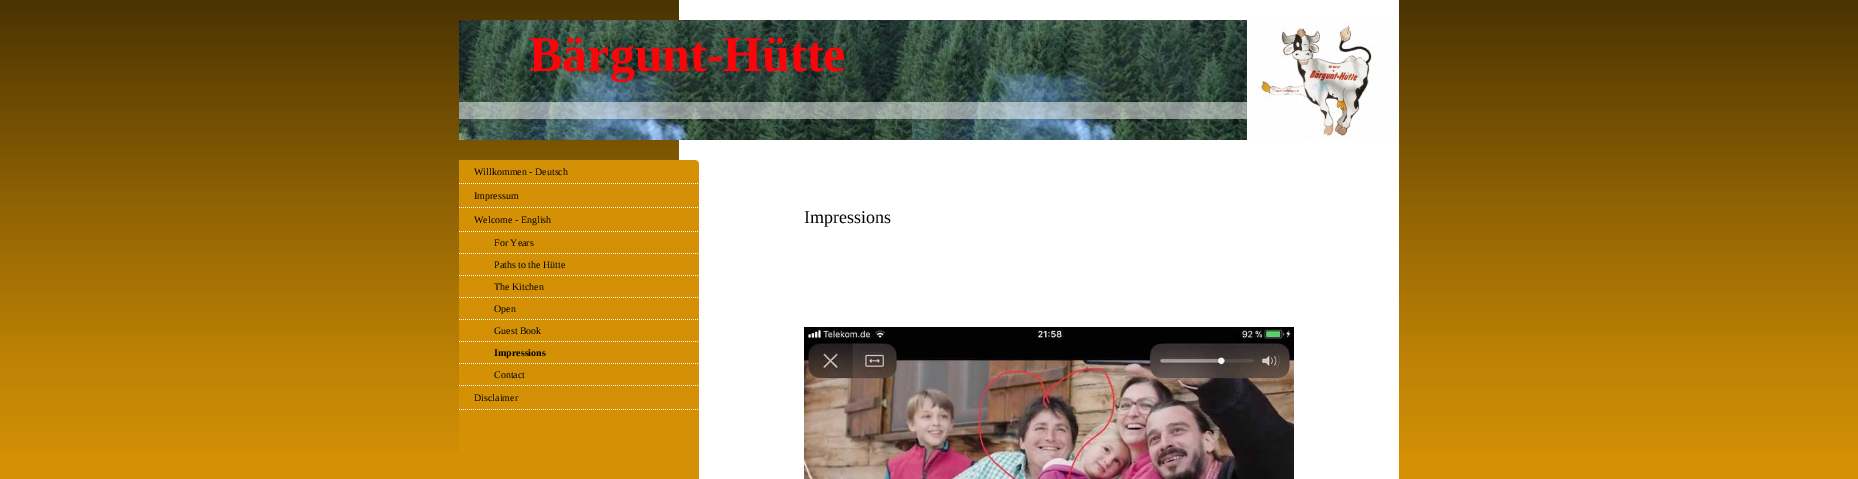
%!PS
<< /PageSize [1858 479] /PageUsesTransparency true >> setpagedevice
/co { dup -16 bitshift 255 div exch dup -8 bitshift 255 and 255 div exch 255 and 255 div setrgbcolor } def
/fn { [ exch dup neg 0 0 3 -1 roll 0 0 ] selectfont } def
/tx { co fn moveto show } def
/bx { co rectfill } def
/al { dup .setfillconstantalpha .setstrokeconstantalpha } def
/im { 5 dict begin { /h /w /y /x /name } { exch def } forall
  gsave x y translate w h scale
  w h 8 [w 0 0 h 0 0] name (r) file false 3 colorimage grestore end } def
0 .pushpdf14devicefilter
0 479 translate 1 -1 scale
4 setmiterlimit
0 0 1858 479 16#D49105 bx
(media/1.raw) 0 0 1858 452 im
679 0 720 479 16#FFFFFF bx
(media/2.raw) 459 20 788 120 im
(media/3.raw) 1247 20 152 120 im
0.5 al
459 102 788 17 16#FFFFFF bx
1 al
459 160 240 319 16#D49105 bx
(media/4.raw) 695 160 4 4 im
(media/5.raw) 459 183 239 1 im
(media/5.raw) 459 207 239 1 im
(media/5.raw) 459 231 239 1 im
(media/5.raw) 459 253 239 1 im
(media/5.raw) 459 275 239 1 im
(media/5.raw) 459 297 239 1 im
(media/5.raw) 459 319 239 1 im
(media/5.raw) 459 341 239 1 im
(media/5.raw) 459 363 239 1 im
(media/5.raw) 459 385 239 1 im
(media/5.raw) 459 409 239 1 im
(media/6.raw) 804 327 490 152 im
(Bärgunt-Hütte) 529 71 /LiberationSerif-Bold 50 16#FD040A tx
(Willkommen - Deutsch) 474 175 /LiberationSerif-Regular 10 16#000000 tx
(Impressum) 474 199 /LiberationSerif-Regular 10 16#000000 tx
(Welcome - English) 474 223 /LiberationSerif-Regular 10 16#000000 tx
(For Years) 494 246 /LiberationSerif-Regular 10 16#000000 tx
(Paths to the Hütte) 494 268 /LiberationSerif-Regular 10 16#000000 tx
(The Kitchen) 494 290 /LiberationSerif-Regular 10 16#000000 tx
(Open) 494 312 /LiberationSerif-Regular 10 16#000000 tx
(Guest Book) 494 334 /LiberationSerif-Regular 10 16#000000 tx
(Impressions) 494 356 /LiberationSerif-Bold 10 16#000000 tx
(Contact) 494 378 /LiberationSerif-Regular 10 16#000000 tx
(Disclaimer) 474 401 /LiberationSerif-Regular 10 16#000000 tx
(Impressions) 804 223 /LiberationSerif-Regular 18 16#000000 tx
.poppdf14devicefilter showpage
